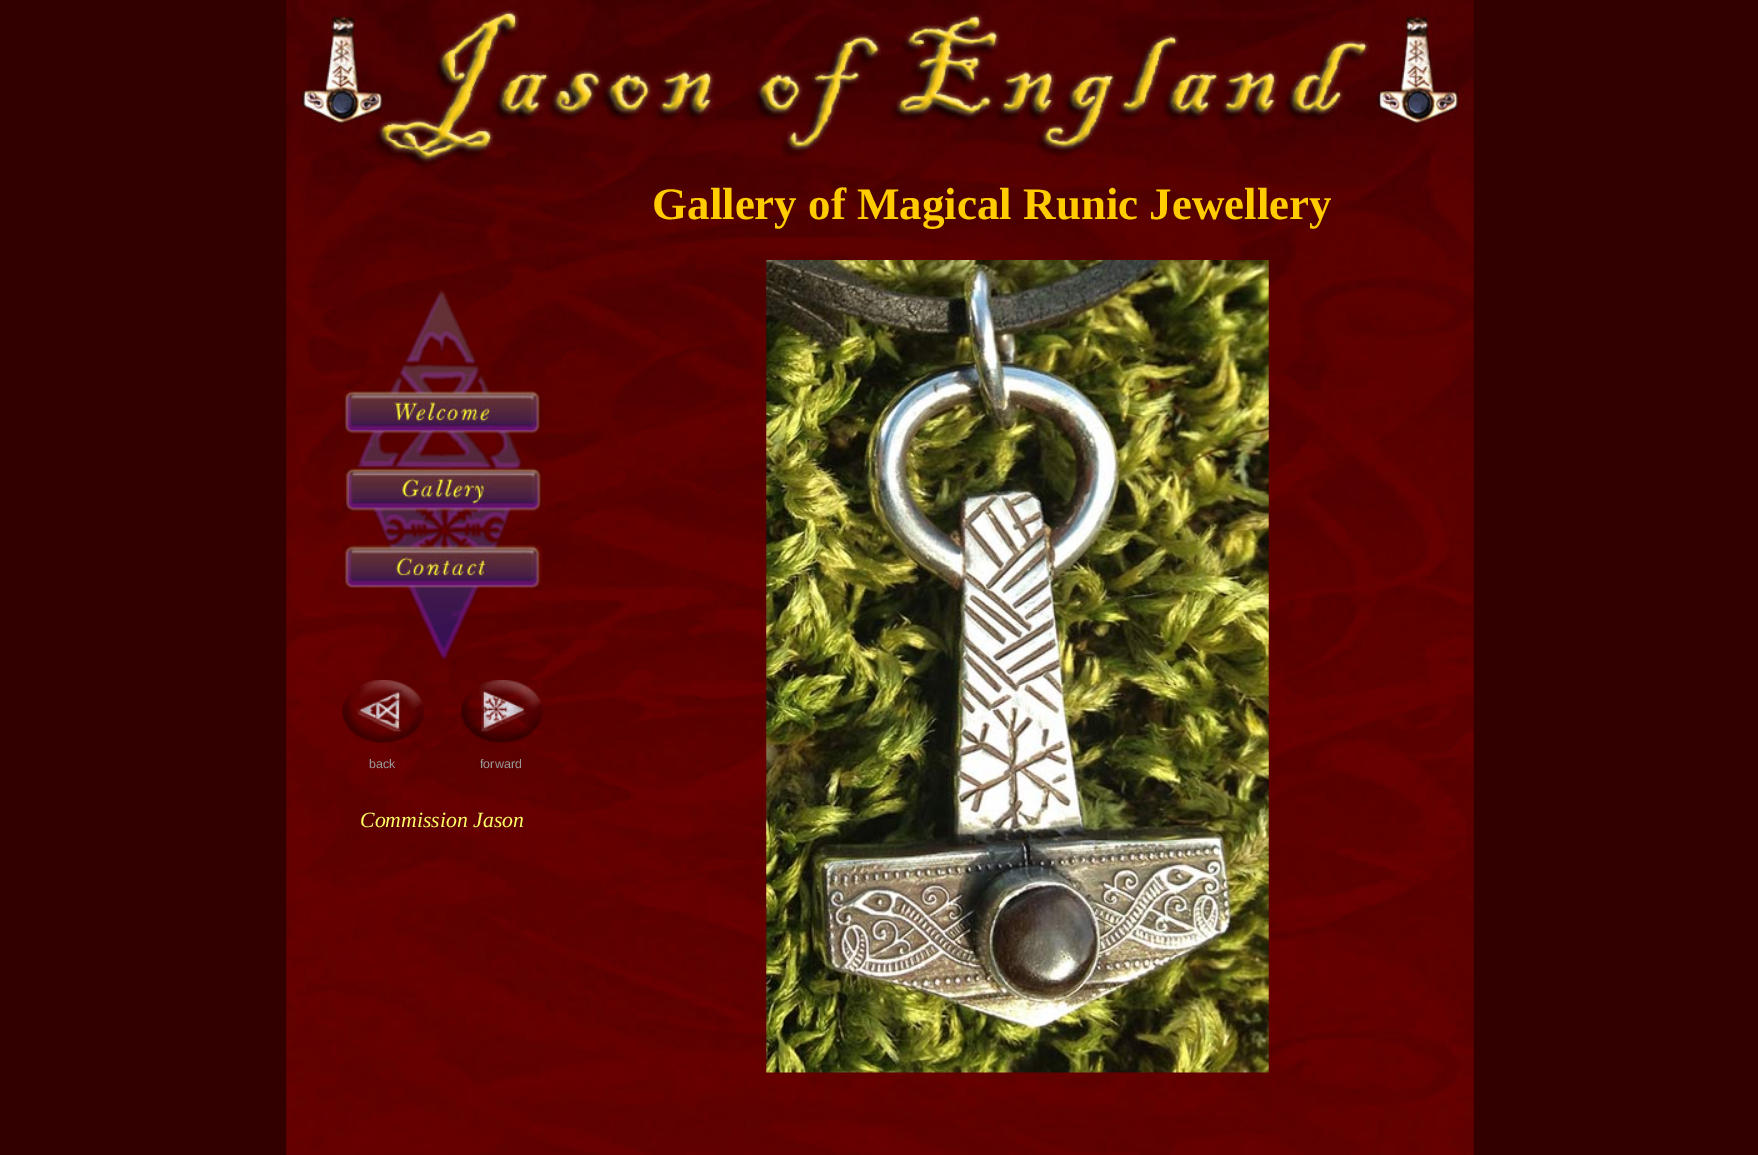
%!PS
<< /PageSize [1758 1155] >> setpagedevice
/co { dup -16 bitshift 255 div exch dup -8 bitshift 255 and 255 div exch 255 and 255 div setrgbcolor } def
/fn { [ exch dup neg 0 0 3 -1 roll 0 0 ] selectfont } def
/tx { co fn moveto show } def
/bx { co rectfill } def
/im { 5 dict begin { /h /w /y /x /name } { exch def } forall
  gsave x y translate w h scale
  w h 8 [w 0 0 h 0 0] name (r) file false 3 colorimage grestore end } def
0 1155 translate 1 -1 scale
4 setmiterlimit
0 0 1758 1155 16#330000 bx
(media/1.raw) 286 0 1188 1155 im
(media/2.raw) 348 289 189 371 im
(media/3.raw) 342 390 201 44 im
(media/4.raw) 342 467 201 45 im
(media/5.raw) 342 545 201 45 im
(media/6.raw) 342 680 82 63 im
(media/7.raw) 461 680 82 63 im
(media/8.raw) 766 260 503 813 im
(Gallery of Magical Runic Jewellery) 652 219 /LiberationSerif-Bold 45 16#FFCC00 tx
(back) 369 768 /LiberationSans-Regular 12.5 16#999999 tx
(forward) 480 768 /LiberationSans-Regular 12.5 16#999999 tx
(Commission Jason) 360 827 /LiberationSerif-Italic 21.75 16#FFFF66 tx
showpage
